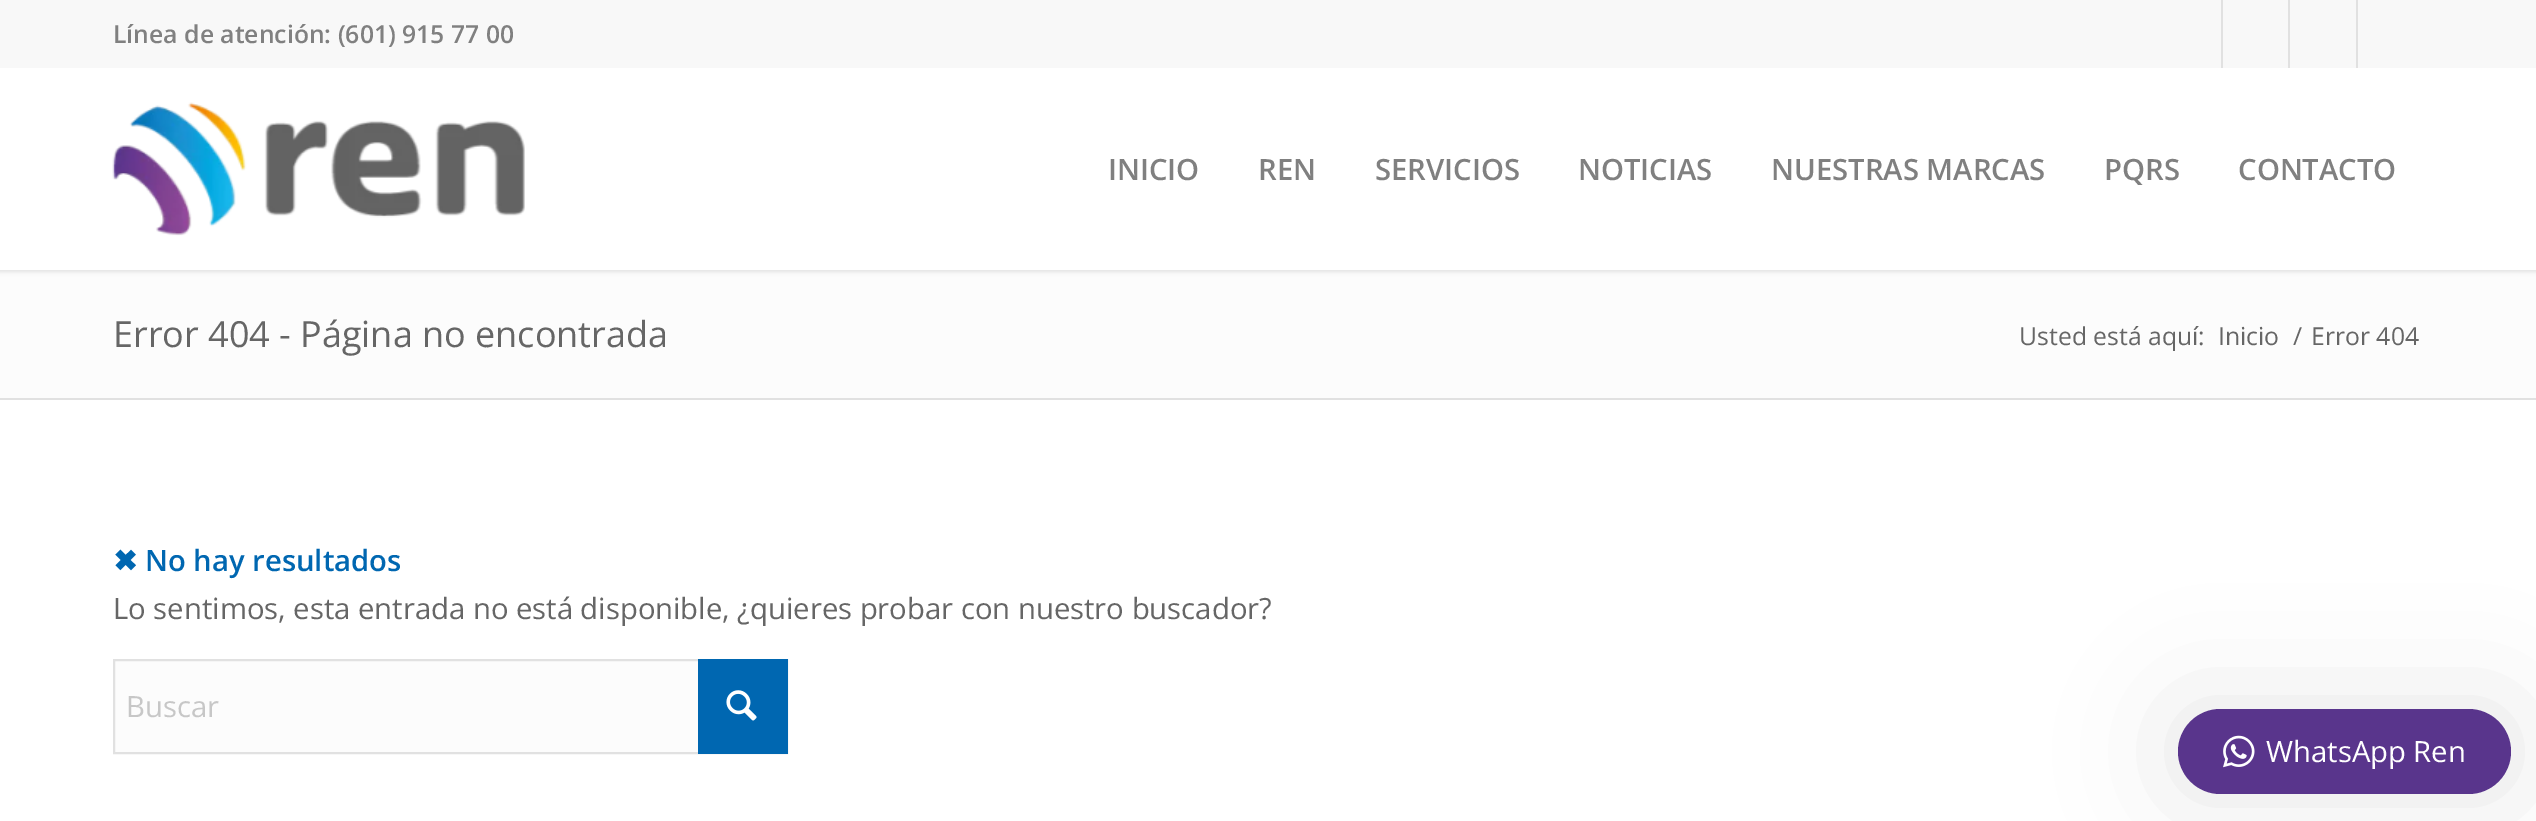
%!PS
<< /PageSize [2536 821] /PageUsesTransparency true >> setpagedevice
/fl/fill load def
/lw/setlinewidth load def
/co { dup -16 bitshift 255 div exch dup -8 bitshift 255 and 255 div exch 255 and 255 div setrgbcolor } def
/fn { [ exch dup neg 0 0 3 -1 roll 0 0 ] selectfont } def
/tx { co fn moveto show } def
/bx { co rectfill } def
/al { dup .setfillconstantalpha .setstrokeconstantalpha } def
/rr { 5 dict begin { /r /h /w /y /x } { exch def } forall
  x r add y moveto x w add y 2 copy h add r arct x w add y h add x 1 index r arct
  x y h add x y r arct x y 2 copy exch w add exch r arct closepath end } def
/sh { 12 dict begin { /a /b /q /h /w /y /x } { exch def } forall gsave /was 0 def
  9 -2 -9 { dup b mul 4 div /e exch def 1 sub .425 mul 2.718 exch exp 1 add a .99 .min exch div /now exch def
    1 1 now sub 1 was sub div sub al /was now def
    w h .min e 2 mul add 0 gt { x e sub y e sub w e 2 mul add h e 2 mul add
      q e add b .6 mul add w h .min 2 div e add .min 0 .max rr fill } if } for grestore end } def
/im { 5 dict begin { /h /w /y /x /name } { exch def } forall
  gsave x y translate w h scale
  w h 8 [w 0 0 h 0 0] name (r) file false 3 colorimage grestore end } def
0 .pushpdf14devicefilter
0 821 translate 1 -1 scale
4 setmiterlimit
0 0 2536 821 16#FFFFFF bx
0 270 2536 128 16#FCFCFC bx
16#000000 co
-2 -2 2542 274 0 2 .1 sh
0 0 2536 68 16#F8F8F8 bx
2221 0 2 68 16#E1E1E1 bx
2288 0 2 68 16#E1E1E1 bx
2356 0 2 68 16#E1E1E1 bx
0 68 2536 202 16#FFFFFF bx
(media/1.raw) 112 102 413 134 im
0 398 2536 2 16#E1E1E1 bx
115 661 583 91 16#FCFCFC bx
16#E1E1E1 co
2 lw
114 660 673 93 rectstroke
698 659 90 95 16#0067B1 bx
(media/2.raw) 726 690 31 31 im
16#000000 co
2178 709 333 85 42.5 56 .1 sh
16#59358C co
2178 709 333 85 42.5 rr fl
(media/3.raw) 2223 735 32 33 im
(Línea de atención: \(601\) 915 77 00) 113 43 /OpenSans-SemiBold 24.75 16#808080 tx
(INICIO) 1108 180 /OpenSans-SemiBold 29.25 16#808080 tx
(REN) 1258 180 /OpenSans-SemiBold 29.25 16#808080 tx
(SERVICIOS) 1375 180 /OpenSans-SemiBold 29.25 16#808080 tx
(NOTICIAS) 1578 180 /OpenSans-SemiBold 29.25 16#808080 tx
(NUESTRAS MARCAS) 1771 180 /OpenSans-SemiBold 29.25 16#808080 tx
(PQRS) 2104 180 /OpenSans-SemiBold 29.25 16#808080 tx
(CONTACTO) 2238 180 /OpenSans-SemiBold 29.25 16#808080 tx
(Error 404 - Página no encontrada) 113 347 /OpenSans-Regular 36 16#666666 tx
(Usted está aquí:) 2019 345 /OpenSans-Regular 24.75 16#666666 tx
(Inicio) 2218 345 /OpenSans-Regular 24.75 16#666666 tx
(/) 2293 345 /OpenSans-Regular 24.75 16#666666 tx
(Error 404) 2311 345 /OpenSans-Regular 24.75 16#666666 tx
(✖) 113 571 /DejaVuSans-Bold 29.25 16#0067B1 tx
(No hay resultados) 145 571 /OpenSans-SemiBold 29.25 16#0067B1 tx
(Lo sentimos, esta entrada no está disponible, ¿quieres probar con nuestro buscador?) 113 619 /OpenSans-Regular 29.25 16#666666 tx
(Buscar) 126 717 /OpenSans-Regular 29.25 16#C7C7C7 tx
(WhatsApp Ren) 2266 762 /OpenSans-Regular 29.25 16#FFFFFF tx
.poppdf14devicefilter showpage
